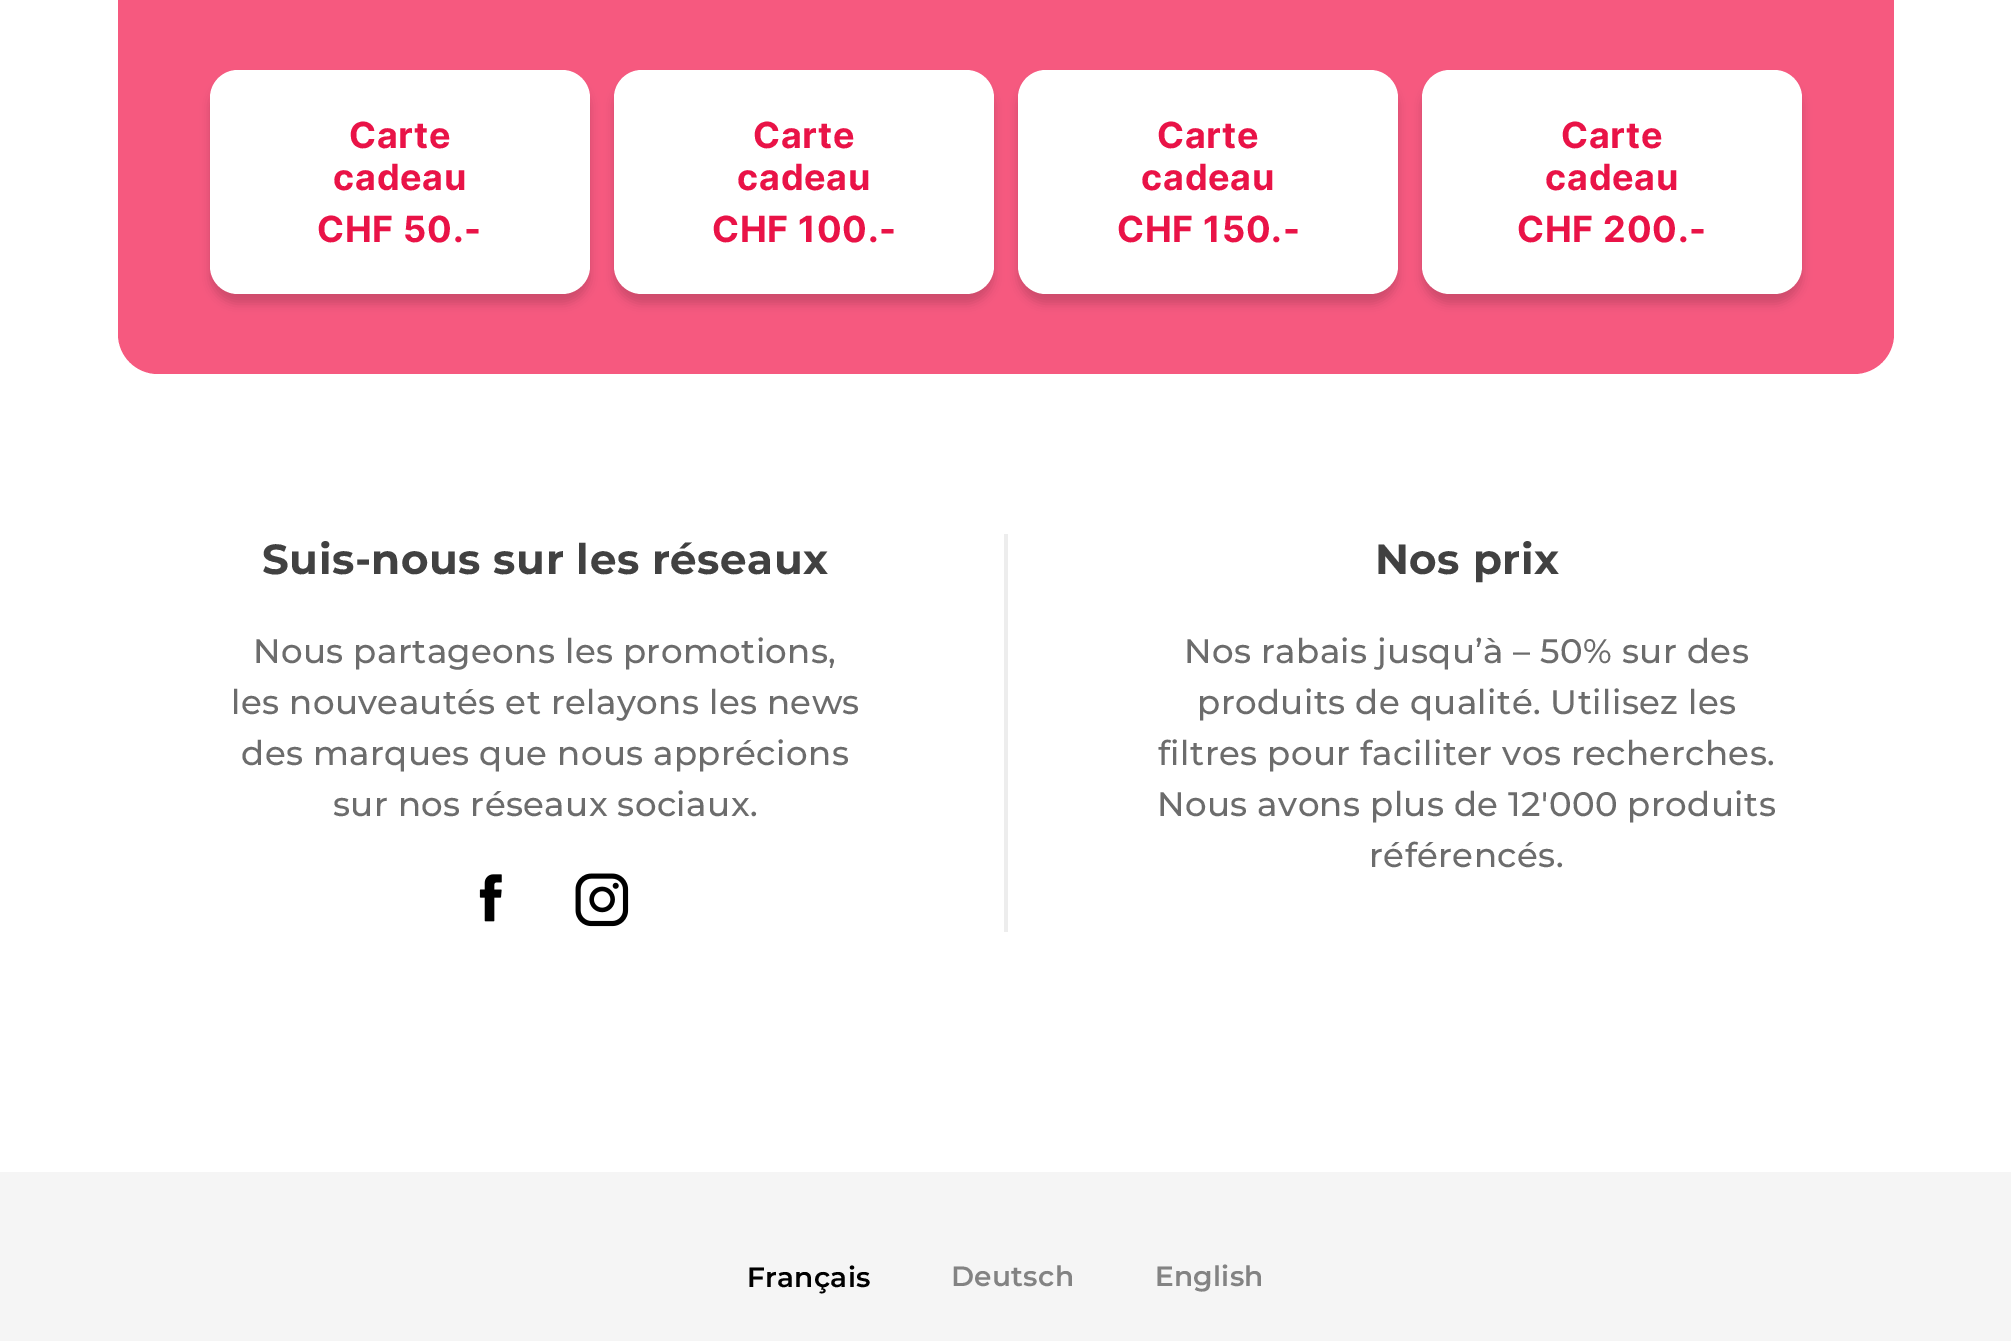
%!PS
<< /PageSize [2011 1341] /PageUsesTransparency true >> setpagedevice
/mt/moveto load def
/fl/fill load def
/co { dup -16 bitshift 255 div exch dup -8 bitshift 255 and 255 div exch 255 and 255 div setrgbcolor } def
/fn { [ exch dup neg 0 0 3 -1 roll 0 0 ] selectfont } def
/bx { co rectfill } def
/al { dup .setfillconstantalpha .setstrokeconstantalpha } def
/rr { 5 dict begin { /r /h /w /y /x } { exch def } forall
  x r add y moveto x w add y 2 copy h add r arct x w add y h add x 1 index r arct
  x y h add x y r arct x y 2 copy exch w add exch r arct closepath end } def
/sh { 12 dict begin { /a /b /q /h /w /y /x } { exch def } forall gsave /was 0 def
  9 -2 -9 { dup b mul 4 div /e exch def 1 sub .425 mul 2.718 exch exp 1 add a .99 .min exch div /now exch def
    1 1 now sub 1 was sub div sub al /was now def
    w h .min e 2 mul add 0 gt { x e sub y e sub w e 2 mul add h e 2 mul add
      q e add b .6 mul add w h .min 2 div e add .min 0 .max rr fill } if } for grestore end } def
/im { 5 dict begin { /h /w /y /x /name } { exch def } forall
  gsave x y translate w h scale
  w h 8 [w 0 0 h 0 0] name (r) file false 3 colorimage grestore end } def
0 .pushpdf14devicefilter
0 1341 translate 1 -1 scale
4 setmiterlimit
0 0 2011 1341 16#FFFFFF bx
16#F6597F co
118 -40 1776 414 40 rr fl
16#000000 co
210 80 380 224 28 5 .16 sh
16#FFFFFF co
210 70 380 224 28 rr fl
16#000000 co
614 80 380 224 28 5 .16 sh
16#FFFFFF co
614 70 380 224 28 rr fl
16#000000 co
1018 80 380 224 28 5 .16 sh
16#FFFFFF co
1018 70 380 224 28 rr fl
16#000000 co
1422 80 380 224 28 5 .16 sh
16#FFFFFF co
1422 70 380 224 28 rr fl
1004 534 4 398 16#EDEDED bx
(media/1.raw) 479 874 23 48 im
(media/2.raw) 575 873 54 54 im
0 1172 2011 169 16#F5F5F5 bx
/Inter-Bold 36 fn
16#E91347 co
349 148 mt .75 0 (Carte) ashow
333 190 mt .75 0 (cadeau) ashow
317 242 mt .75 0 (CHF 50.-) ashow
753 148 mt .75 0 (Carte) ashow
737 190 mt .75 0 (cadeau) ashow
712 242 mt .75 0 (CHF 100.-) ashow
1157 148 mt .75 0 (Carte) ashow
1141 190 mt .75 0 (cadeau) ashow
1117 242 mt .75 0 (CHF 150.-) ashow
1561 148 mt .75 0 (Carte) ashow
1545 190 mt .75 0 (cadeau) ashow
1517 242 mt .75 0 (CHF 200.-) ashow
/Montserrat-Bold 42 fn
16#414141 co
262 574 mt .5 0 (Suis-nous sur les réseaux) ashow
/Montserrat-Medium 34 fn
16#6C6C6C co
253 663 mt .4 0 (Nous partageons les promotions,) ashow
231 714 mt .4 0 (les nouveautés et relayons les news) ashow
241 765 mt .4 0 (des marques que nous apprécions) ashow
333 816 mt .4 0 (sur nos réseaux sociaux.) ashow
/Montserrat-Bold 42 fn
16#414141 co
1375 574 mt .5 0 (Nos prix) ashow
/Montserrat-Medium 34 fn
16#6C6C6C co
1184 663 mt .4 0 (Nos rabais jusqu’à – 50% sur des) ashow
1197 714 mt .4 0 (produits de qualité. Utilisez les) ashow
1158 765 mt .4 0 (filtres pour faciliter vos recherches.) ashow
1157 816 mt .4 0 (Nous avons plus de 12'000 produits) ashow
1369 867 mt .4 0 (référencés.) ashow
/Montserrat-SemiBold 28 fn
16#000000 co
747 1287 mt .25 0 (Français) ashow
16#838383 co
951 1286 mt .25 0 (Deutsch) ashow
1155 1286 mt .25 0 (English) ashow
.poppdf14devicefilter showpage
